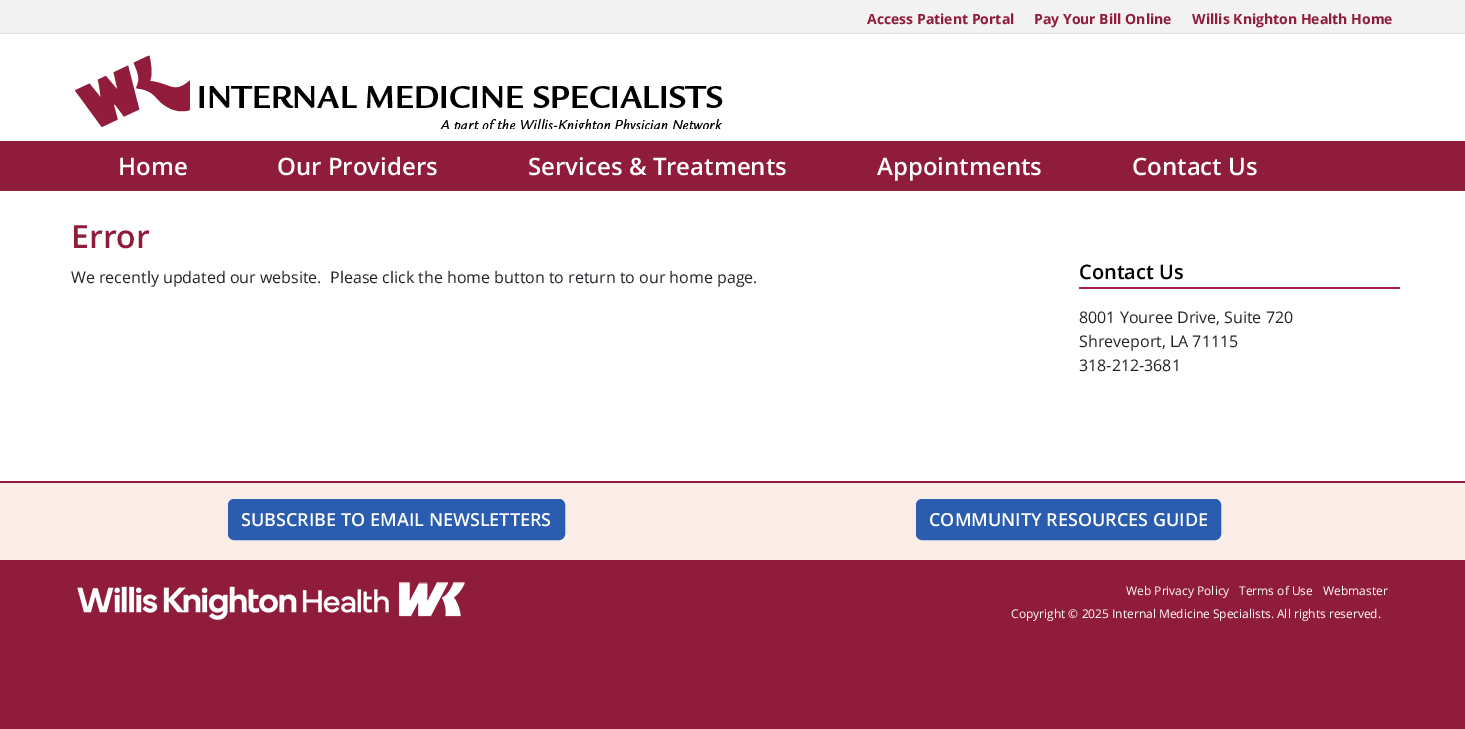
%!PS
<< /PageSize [1465 729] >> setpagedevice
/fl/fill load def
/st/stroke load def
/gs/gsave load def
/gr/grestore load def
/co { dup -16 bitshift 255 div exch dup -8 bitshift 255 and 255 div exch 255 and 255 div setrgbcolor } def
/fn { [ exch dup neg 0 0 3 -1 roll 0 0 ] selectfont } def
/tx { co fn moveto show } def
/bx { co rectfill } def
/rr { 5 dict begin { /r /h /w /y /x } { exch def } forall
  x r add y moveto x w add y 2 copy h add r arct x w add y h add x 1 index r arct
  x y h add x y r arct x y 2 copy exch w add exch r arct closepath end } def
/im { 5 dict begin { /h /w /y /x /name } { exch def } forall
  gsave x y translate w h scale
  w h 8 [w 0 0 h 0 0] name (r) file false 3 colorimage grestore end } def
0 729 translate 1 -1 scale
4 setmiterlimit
0 0 1465 729 16#901C3C bx
0 0 1465 33 16#F2F2F2 bx
0 33 1465 1 16#DFDFDF bx
0 34 1465 107 16#FFFFFF bx
(media/1.raw) 75 55 648 74 im
0 191 1465 290 16#FFFFFF bx
1079 287 321 2 16#A81F44 bx
0 483 1465 77 16#FAECE7 bx
16#2A5DB0 co
228.5 499.5 336 40 5.5 rr gs fl gr
st
916.5 499.5 304 40 5.5 rr gs fl gr
st
(media/2.raw) 77 582 388 38 im
(Access Patient Portal) 867 24 /OpenSans-Bold 14 16#901C3C tx
(Pay Your Bill Online) 1034 24 /OpenSans-Bold 14 16#901C3C tx
(Willis Knighton Health Home) 1192 24 /OpenSans-Bold 14 16#901C3C tx
(Home) 118 175 /OpenSans-SemiBold 24 16#FFFFFF tx
(Our Providers) 277 175 /OpenSans-SemiBold 24 16#FFFFFF tx
(Services & Treatments) 528 175 /OpenSans-SemiBold 24 16#FFFFFF tx
(Appointments) 877 175 /OpenSans-SemiBold 24 16#FFFFFF tx
(Contact Us) 1132 175 /OpenSans-SemiBold 24 16#FFFFFF tx
(Error) 71 248 /OpenSans-SemiBold 32 16#901C3C tx
(We recently updated our website.  Please click the home button to return to our home page.) 71 283 /OpenSans-Regular 16 16#212529 tx
(Contact Us) 1079 279 /OpenSans-SemiBold 20 16#000000 tx
(8001 Youree Drive, Suite 720) 1079 323 /OpenSans-Regular 16 16#212529 tx
(Shreveport, LA 71115) 1079 347 /OpenSans-Regular 16 16#212529 tx
(318-212-3681) 1079 371 /OpenSans-Regular 16 16#212529 tx
(SUBSCRIBE TO EMAIL NEWSLETTERS) 241 526 /OpenSans-SemiBold 18 16#FFFFFF tx
(COMMUNITY RESOURCES GUIDE) 929 526 /OpenSans-SemiBold 18 16#FFFFFF tx
(Web Privacy Policy) 1126 595 /OpenSans-Regular 12 16#FFFFFF tx
(Terms of Use) 1239 595 /OpenSans-Regular 12 16#FFFFFF tx
(Webmaster) 1323 595 /OpenSans-Regular 12 16#FFFFFF tx
(Copyright © 2025 Internal Medicine Specialists. All rights reserved.) 1011 618 /OpenSans-Regular 12 16#FFFFFF tx
showpage
